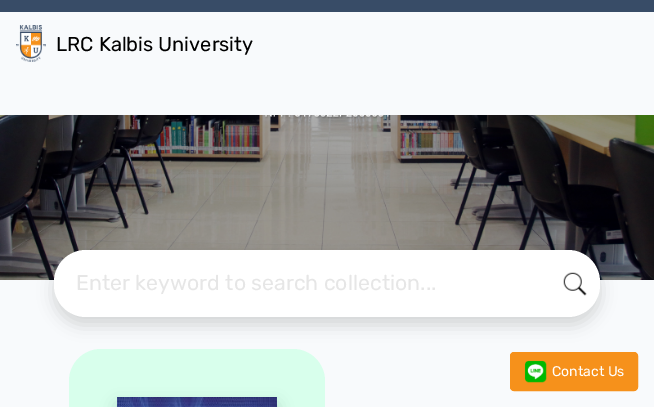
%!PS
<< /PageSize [654 407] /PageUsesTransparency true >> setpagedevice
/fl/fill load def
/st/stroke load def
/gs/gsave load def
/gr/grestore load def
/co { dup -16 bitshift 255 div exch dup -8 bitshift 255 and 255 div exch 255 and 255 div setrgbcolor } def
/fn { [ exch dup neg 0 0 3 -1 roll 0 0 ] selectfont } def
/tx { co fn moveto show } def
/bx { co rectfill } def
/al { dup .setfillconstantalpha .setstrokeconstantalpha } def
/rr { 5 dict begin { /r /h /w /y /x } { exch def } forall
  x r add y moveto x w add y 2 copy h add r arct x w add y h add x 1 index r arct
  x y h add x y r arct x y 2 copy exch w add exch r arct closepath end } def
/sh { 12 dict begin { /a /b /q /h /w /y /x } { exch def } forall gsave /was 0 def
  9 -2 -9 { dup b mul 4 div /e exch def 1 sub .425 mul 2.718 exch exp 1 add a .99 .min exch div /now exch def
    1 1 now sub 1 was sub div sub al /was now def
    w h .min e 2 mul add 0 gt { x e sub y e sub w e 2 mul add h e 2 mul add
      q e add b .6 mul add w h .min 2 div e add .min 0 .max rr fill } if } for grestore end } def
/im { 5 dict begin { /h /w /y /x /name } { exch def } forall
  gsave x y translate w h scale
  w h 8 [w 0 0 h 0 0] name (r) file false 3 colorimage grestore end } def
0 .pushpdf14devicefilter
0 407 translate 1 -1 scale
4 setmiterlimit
0 0 654 407 16#F8FAFC bx
(media/1.raw) 0 115 654 165 im
0 0 654 12 16#384C67 bx
(media/2.raw) 16 25 30 37 im
16#D8FFEC co
69 349 256 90 32 rr fl
16#000000 co
54 258 546 67 32 8 .15 sh
16#FFFFFF co
54 250 546 67 32 rr fl
(media/3.raw) 563 272 24 24 im
16#000000 co
117 405 160 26 0 8 .15 sh
(media/4.raw) 117 397 160 10 im
16#F6911B co
510.5 352.5 127 38 3.5 rr gs fl gr
st
(media/5.raw) 524 360 23 23 im
(LRC Kalbis University) 56 51 /Rubik-Light 20 16#000000 tx
(Enter keyword to search collection...) 76 290 /Rubik-Light 21.3 16#E6E6E6 tx
(Contact Us) 552 376 /Rubik-Light 14 16#FFFFFF tx
.poppdf14devicefilter showpage
